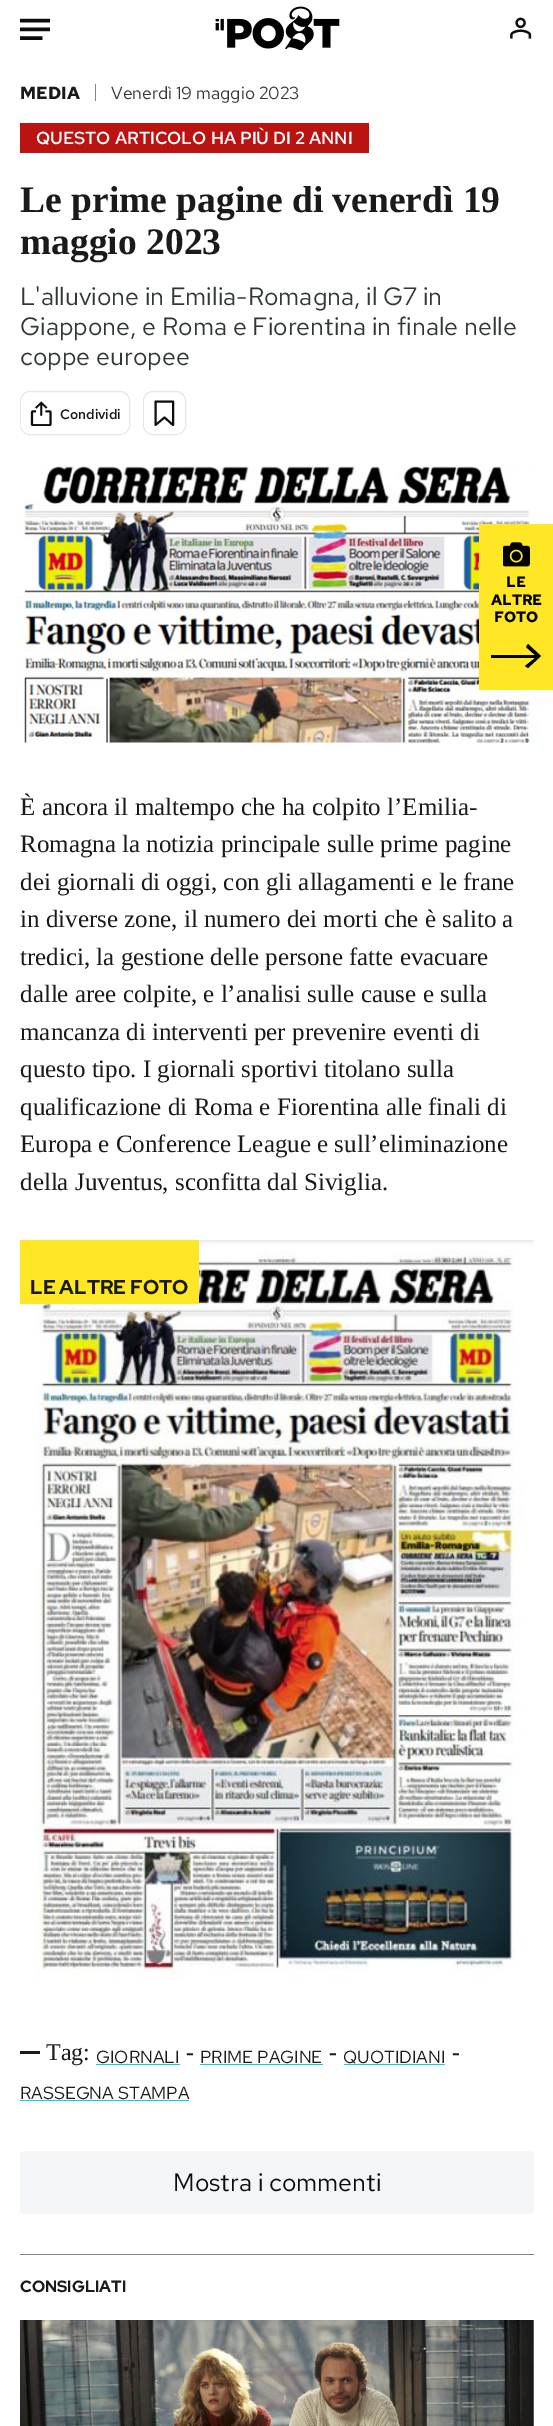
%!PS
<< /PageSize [553 2426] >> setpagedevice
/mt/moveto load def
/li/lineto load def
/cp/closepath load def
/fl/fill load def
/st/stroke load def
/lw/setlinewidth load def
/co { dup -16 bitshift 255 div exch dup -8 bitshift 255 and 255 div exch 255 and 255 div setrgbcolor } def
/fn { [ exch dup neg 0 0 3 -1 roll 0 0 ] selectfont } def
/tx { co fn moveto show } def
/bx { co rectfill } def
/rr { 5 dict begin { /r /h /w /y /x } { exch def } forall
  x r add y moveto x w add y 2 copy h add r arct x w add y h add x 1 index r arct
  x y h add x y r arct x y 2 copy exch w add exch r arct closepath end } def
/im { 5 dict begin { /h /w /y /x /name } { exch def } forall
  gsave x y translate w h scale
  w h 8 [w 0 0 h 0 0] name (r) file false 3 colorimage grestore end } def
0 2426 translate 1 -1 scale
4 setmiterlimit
0 0 553 2426 16#FFFFFF bx
(media/1.raw) 20 18 30 22 im
(media/2.raw) 215 6 125 44 im
(media/3.raw) 510 17 22 22 im
95 84 1 17 16#7A888B bx
20 123 349 30 16#BB1212 bx
16#E3E7E7 co
20.5 391.5 109 43 9.5 rr st
16#FFFFFF co
21 393 108 41 10 rr fl
(media/4.raw) 30 401 22 25 im
16#E3E7E7 co
143.5 391.5 42 43 9.5 rr st
16#FFFFFF co
144 393 41 41 10 rr fl
16#0C0D0E co
1.9 lw
1 setlinejoin
155.5 425 mt 155.5 401.5 li 173 401.5 li 173 425 li 164.5 417.5 li cp st
(media/5.raw) 16 465 526 278 im
479 524 74 166 16#FFE725 bx
(media/6.raw) 503 542 27 25 im
16#000000 co
528 644 mt 541 656 li 528 668 li 525 666 li 535 658 li 491 658 li 491 655 li 535 655 li 526 647 li cp fl
(media/7.raw) 20 1240 514 740 im
20 1240 179 64 16#FFE725 bx
20 2051 20 3 16#191B1B bx
96 2064 84 1 16#0ECDEA bx
200 2064 123 1 16#0ECDEA bx
344 2064 101 1 16#0ECDEA bx
20 2100 169 1 16#0ECDEA bx
16#F4F5F6 co
20 2151 514 63 5 rr fl
20 2254 514 1 16#7A888B bx
(media/8.raw) 20 2320 514 106 im
(MEDIA) 20 99 /RedHatText-Bold 17.5 16#191B1B tx
(Venerdì 19 maggio 2023) 111 99 /RedHatText-Regular 17.5 16#323839 tx
(QUESTO ARTICOLO HA PIÙ DI 2 ANNI) 36 144 /RedHatText-SemiBold 17.5 16#FFFFFF tx
(Le prime pagine di venerdì 19) 20 212 /LiberationSerif-Bold 37.5 16#191B1B tx
(maggio 2023) 20 254 /LiberationSerif-Bold 37.5 16#191B1B tx
(L'alluvione in Emilia-Romagna, il G7 in) 20 305 /RedHatText-Regular 25 16#323839 tx
(Giappone, e Roma e Fiorentina in finale nelle) 20 335 /RedHatText-Regular 25 16#323839 tx
(coppe europee) 20 365 /RedHatText-Regular 25 16#323839 tx
(Condividi) 60 419 /RedHatText-SemiBold 13.75 16#191B1B tx
(LE) 506 587 /RedHatText-Bold 15 16#000000 tx
(ALTRE) 491 605 /RedHatText-Bold 15 16#000000 tx
(FOTO) 494 622 /RedHatText-Bold 15 16#000000 tx
(È ancora il maltempo che ha colpito l’Emilia-) 20 815 /LiberationSerif-Regular 25 16#191B1B tx
(Romagna la notizia principale sulle prime pagine) 20 852 /LiberationSerif-Regular 25 16#191B1B tx
(dei giornali di oggi, con gli allagamenti e le frane) 20 890 /LiberationSerif-Regular 25 16#191B1B tx
(in diverse zone, il numero dei morti che è salito a) 20 927 /LiberationSerif-Regular 25 16#191B1B tx
(tredici, la gestione delle persone fatte evacuare) 20 965 /LiberationSerif-Regular 25 16#191B1B tx
(dalle aree colpite, e l’analisi sulle cause e sulla) 20 1002 /LiberationSerif-Regular 25 16#191B1B tx
(mancanza di interventi per prevenire eventi di) 20 1040 /LiberationSerif-Regular 25 16#191B1B tx
(questo tipo. I giornali sportivi titolano sulla) 20 1077 /LiberationSerif-Regular 25 16#191B1B tx
(qualificazione di Roma e Fiorentina alle finali di) 20 1115 /LiberationSerif-Regular 25 16#191B1B tx
(Europa e Conference League e sull’eliminazione) 20 1152 /LiberationSerif-Regular 25 16#191B1B tx
(della Juventus, sconfitta dal Siviglia.) 20 1190 /LiberationSerif-Regular 25 16#191B1B tx
(LE ALTRE FOTO) 30 1294 /RedHatDisplay-Bold 20 16#191B1B tx
(Tag:) 46 2060 /LiberationSerif-Regular 24 16#191B1B tx
(GIORNALI) 96 2063 /RedHatText-Regular 17.5 16#191B1B tx
(-) 186 2060 /LiberationSerif-Bold 24 16#191B1B tx
(PRIME PAGINE) 200 2063 /RedHatText-Regular 17.5 16#191B1B tx
(-) 329 2060 /LiberationSerif-Bold 24 16#191B1B tx
(QUOTIDIANI) 343 2063 /RedHatText-Regular 17.5 16#191B1B tx
(-) 452 2060 /LiberationSerif-Bold 24 16#191B1B tx
(RASSEGNA STAMPA) 20 2099 /RedHatText-Regular 17.5 16#191B1B tx
(Mostra i commenti) 173 2191 /RedHatText-Regular 25 16#0C0D0E tx
(CONSIGLIATI) 20 2292 /RedHatDisplay-Bold 16.25 16#191B1B tx
showpage
